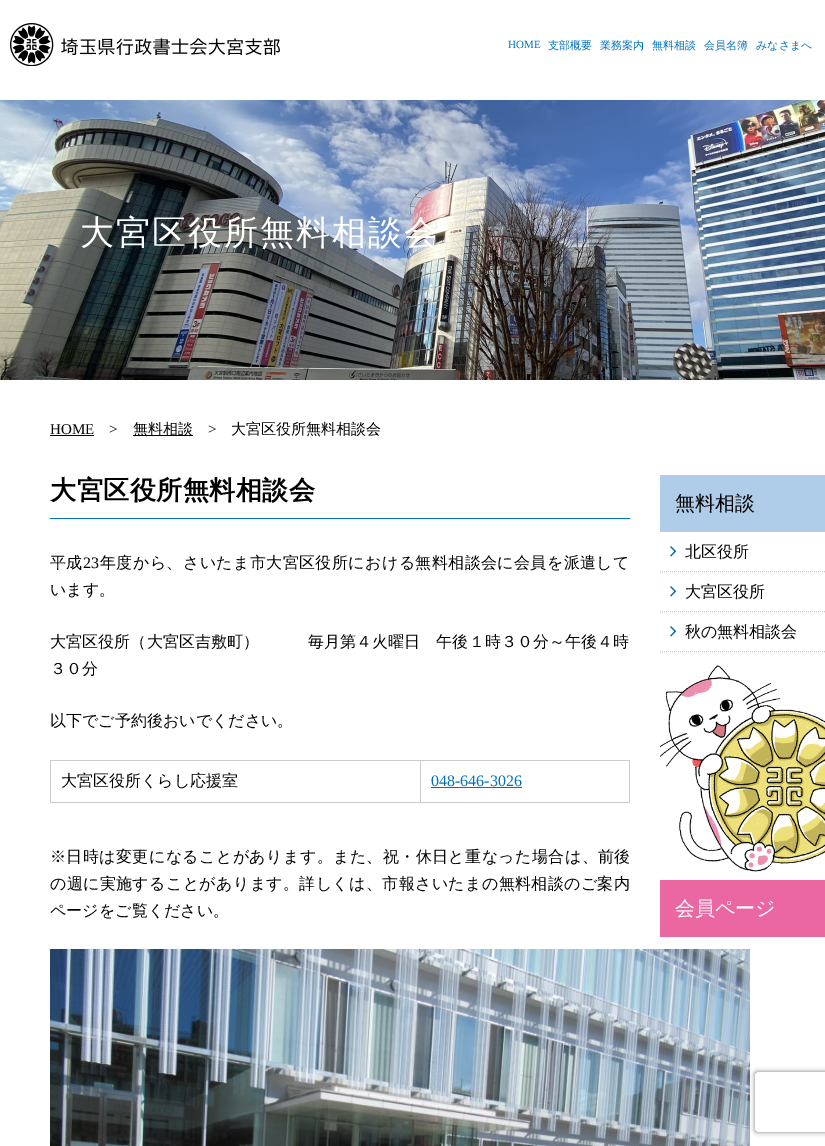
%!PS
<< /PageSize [825 1146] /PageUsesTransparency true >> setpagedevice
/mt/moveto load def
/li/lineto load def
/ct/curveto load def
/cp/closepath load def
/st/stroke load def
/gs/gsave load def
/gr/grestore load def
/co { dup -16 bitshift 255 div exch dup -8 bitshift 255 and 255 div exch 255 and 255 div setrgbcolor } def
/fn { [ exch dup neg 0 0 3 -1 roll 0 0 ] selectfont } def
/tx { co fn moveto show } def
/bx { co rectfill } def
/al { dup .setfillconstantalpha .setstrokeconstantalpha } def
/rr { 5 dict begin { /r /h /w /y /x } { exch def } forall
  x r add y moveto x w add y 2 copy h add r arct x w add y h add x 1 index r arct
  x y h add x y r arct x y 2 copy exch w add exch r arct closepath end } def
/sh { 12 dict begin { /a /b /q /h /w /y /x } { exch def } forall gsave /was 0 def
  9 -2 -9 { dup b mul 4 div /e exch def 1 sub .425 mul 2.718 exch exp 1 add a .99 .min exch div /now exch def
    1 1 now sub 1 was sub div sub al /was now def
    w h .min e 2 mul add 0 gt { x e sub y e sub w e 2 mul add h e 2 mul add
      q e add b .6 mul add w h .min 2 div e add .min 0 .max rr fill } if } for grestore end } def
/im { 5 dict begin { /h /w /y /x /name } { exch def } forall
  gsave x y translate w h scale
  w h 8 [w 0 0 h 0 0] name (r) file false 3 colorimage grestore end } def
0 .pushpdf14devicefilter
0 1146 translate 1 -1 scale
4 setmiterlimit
0 0 825 1146 16#FFFFFF bx
(media/1.raw) 10 23 270 43 im
(media/2.raw) 0 100 825 280 im
50 435 44 1 16#000000 bx
133 435 60 1 16#000000 bx
50 518 580 1 16#0071BC bx
50 760 580 1 16#CCCCCC bx
629 760 1 43 16#CCCCCC bx
50 802 580 1 16#CCCCCC bx
50 760 1 43 16#CCCCCC bx
420 760 1 43 16#CCCCCC bx
431 787 91 1 16#0271BC bx
(media/3.raw) 50 949 700 197 im
660 475 165 57 16#AFCCE9 bx
(media/4.raw) 670 546 7 11 im
16#CCCCCC co
[1 1] 0 setdash
660 571.5 mt 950 571.5 li st
(media/4.raw) 670 586 7 11 im
660 611.5 mt 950 611.5 li st
(media/4.raw) 670 626 7 11 im
660 651.5 mt 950 651.5 li st
(media/5.raw) 660 665 165 207 im
660 880 165 57 16#EB67A2 bx
gs
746 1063 mt 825 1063 li 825 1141 li 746 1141 li cp 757 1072 mt 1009 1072 li 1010 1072 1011 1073 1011 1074 ct 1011 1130 li 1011 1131 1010 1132 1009 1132 ct 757 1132 li 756 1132 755 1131 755 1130 ct 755 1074 li 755 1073 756 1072 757 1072 ct cp eoclip newpath
16#808080 co
755 1072 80 60 2 2.5 1 sh
gr
(HOME) 508 48 /LiberationSerif-Regular 11 16#0271BC tx
(支部概要) 548 49 /WenQuanYiZenHei-Medium 11 16#0271BC tx
(業務案内) 600 49 /WenQuanYiZenHei-Medium 11 16#0271BC tx
(無料相談) 652 49 /WenQuanYiZenHei-Medium 11 16#0271BC tx
(会員名簿) 704 49 /WenQuanYiZenHei-Medium 11 16#0271BC tx
(みなさまへ) 756 49 /WenQuanYiZenHei-Medium 11 16#0271BC tx
/WenQuanYiZenHei-Medium 34 fn
16#FFFFFF co
80 244 mt 2 0 (大宮区役所無料相談会) ashow
(HOME) 50 434 /LiberationSerif-Regular 15 16#000000 tx
(>) 109 434 /LiberationSerif-Regular 15 16#000000 tx
(無料相談) 133 434 /WenQuanYiZenHei-Medium 15 16#000000 tx
(>) 208 434 /LiberationSerif-Regular 15 16#000000 tx
(大宮区役所無料相談会) 231 434 /WenQuanYiZenHei-Medium 15 16#000000 tx
/WenQuanYiZenHei-Bold 26 fn
50 499 mt .5 0 (大宮区役所無料相談会) ashow
/WenQuanYiZenHei-Medium 16 fn
50 568 mt .4 0 (平成) ashow
/LiberationSerif-Regular 16 fn
83 568 mt .4 0 (23) ashow
/WenQuanYiZenHei-Medium 16 fn
100 568 mt .4 0 (年度から、さいたま市大宮区役所における無料相談会に会員を派遣して) ashow
(います。) 50 595 /WenQuanYiZenHei-Medium 16 16#000000 tx
50 647 mt .1 0 (大宮区役所（大宮区吉敷町）　　　毎月第４火曜日　午後１時３０分～午後４時) ashow
(３０分) 50 674 /WenQuanYiZenHei-Medium 16 16#000000 tx
(以下でご予約後おいでください。) 50 726 /WenQuanYiZenHei-Medium 16 16#000000 tx
(大宮区役所くらし応援室) 61 786 /WenQuanYiZenHei-Medium 16 16#000000 tx
(048-646-3026) 431 786 /LiberationSerif-Regular 16 16#0271BC tx
/WenQuanYiZenHei-Medium 16 fn
16#000000 co
50 862 mt .4 0 (※日時は変更になることがあります。また、祝・休日と重なった場合は、前後) ashow
50 889 mt .35 0 (の週に実施することがあります。詳しくは、市報さいたまの無料相談のご案内) ashow
(ページをご覧ください。) 50 916 /WenQuanYiZenHei-Medium 16 16#000000 tx
(無料相談) 675 510 /WenQuanYiZenHei-Medium 20 16#000000 tx
(北区役所) 685 557 /WenQuanYiZenHei-Medium 16 16#000000 tx
(大宮区役所) 685 597 /WenQuanYiZenHei-Medium 16 16#000000 tx
(秋の無料相談会) 685 637 /WenQuanYiZenHei-Medium 16 16#000000 tx
(会員ページ) 675 915 /WenQuanYiZenHei-Medium 20 16#FFFFFF tx
.poppdf14devicefilter showpage
